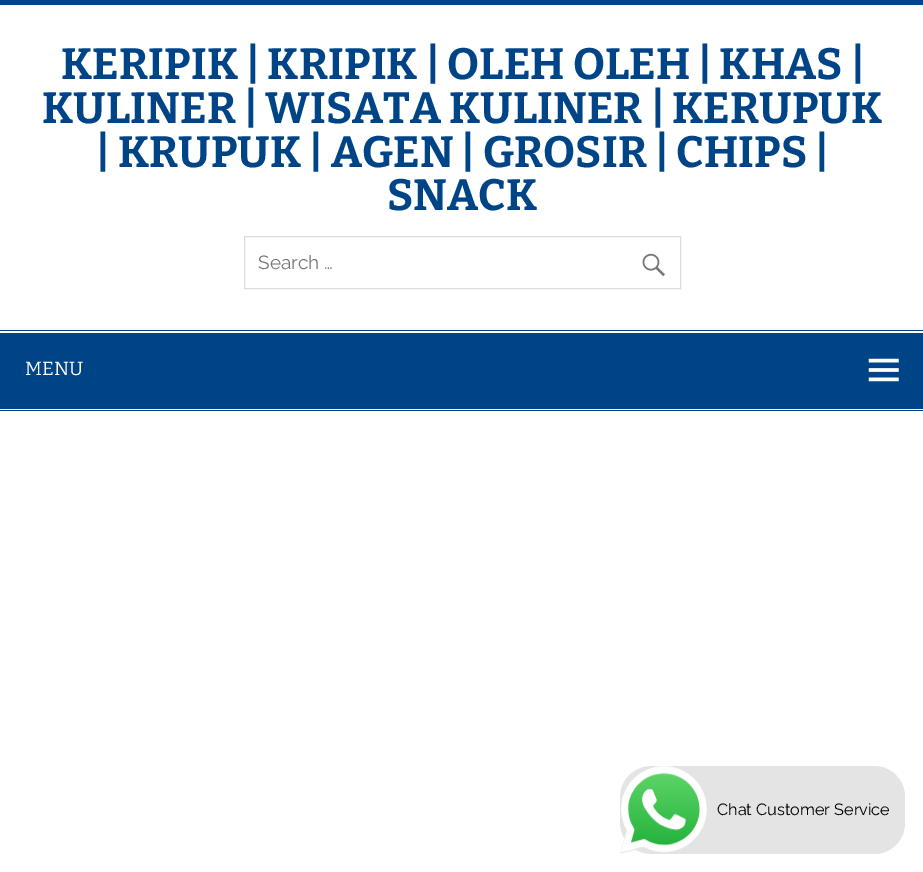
%!PS
<< /PageSize [923 872] >> setpagedevice
/fl/fill load def
/co { dup -16 bitshift 255 div exch dup -8 bitshift 255 and 255 div exch 255 and 255 div setrgbcolor } def
/fn { [ exch dup neg 0 0 3 -1 roll 0 0 ] selectfont } def
/tx { co fn moveto show } def
/bx { co rectfill } def
/rr { 5 dict begin { /r /h /w /y /x } { exch def } forall
  x r add y moveto x w add y 2 copy h add r arct x w add y h add x 1 index r arct
  x y h add x y r arct x y 2 copy exch w add exch r arct closepath end } def
/im { 5 dict begin { /h /w /y /x /name } { exch def } forall
  gsave x y translate w h scale
  w h 8 [w 0 0 h 0 0] name (r) file false 3 colorimage grestore end } def
0 872 translate 1 -1 scale
4 setmiterlimit
0 0 923 872 16#FFFFFF bx
0 0 923 5 16#004488 bx
16#DDDDDD co
244.5 236.5 436 52 rectstroke
(media/1.raw) 642 253 23 24 im
0 330 923 1 16#004488 bx
0 410 923 1 16#004488 bx
0 333 923 76 16#004488 bx
(media/2.raw) 868 358 31 24 im
16#E4E4E4 co
620 766 285 88 31 rr fl
(media/3.raw) 620 766 87 88 im
(KERIPIK | KRIPIK | OLEH OLEH | KHAS |) 61 79 /Bitter-Bold 43.75 16#004488 tx
(KULINER | WISATA KULINER | KERUPUK) 42 123 /Bitter-Bold 43.75 16#004488 tx
(| KRUPUK | AGEN | GROSIR | CHIPS |) 96 167 /Bitter-Bold 43.75 16#004488 tx
(SNACK) 387 210 /Bitter-Bold 43.75 16#004488 tx
(Search …) 258 269 /Raleway-Regular 19 16#757575 tx
(MENU) 25 375 /Bitter-Regular 19 16#FFFFFF tx
(Chat Customer Service) 717 815 /Raleway-Regular 16.25 16#000000 tx
showpage
